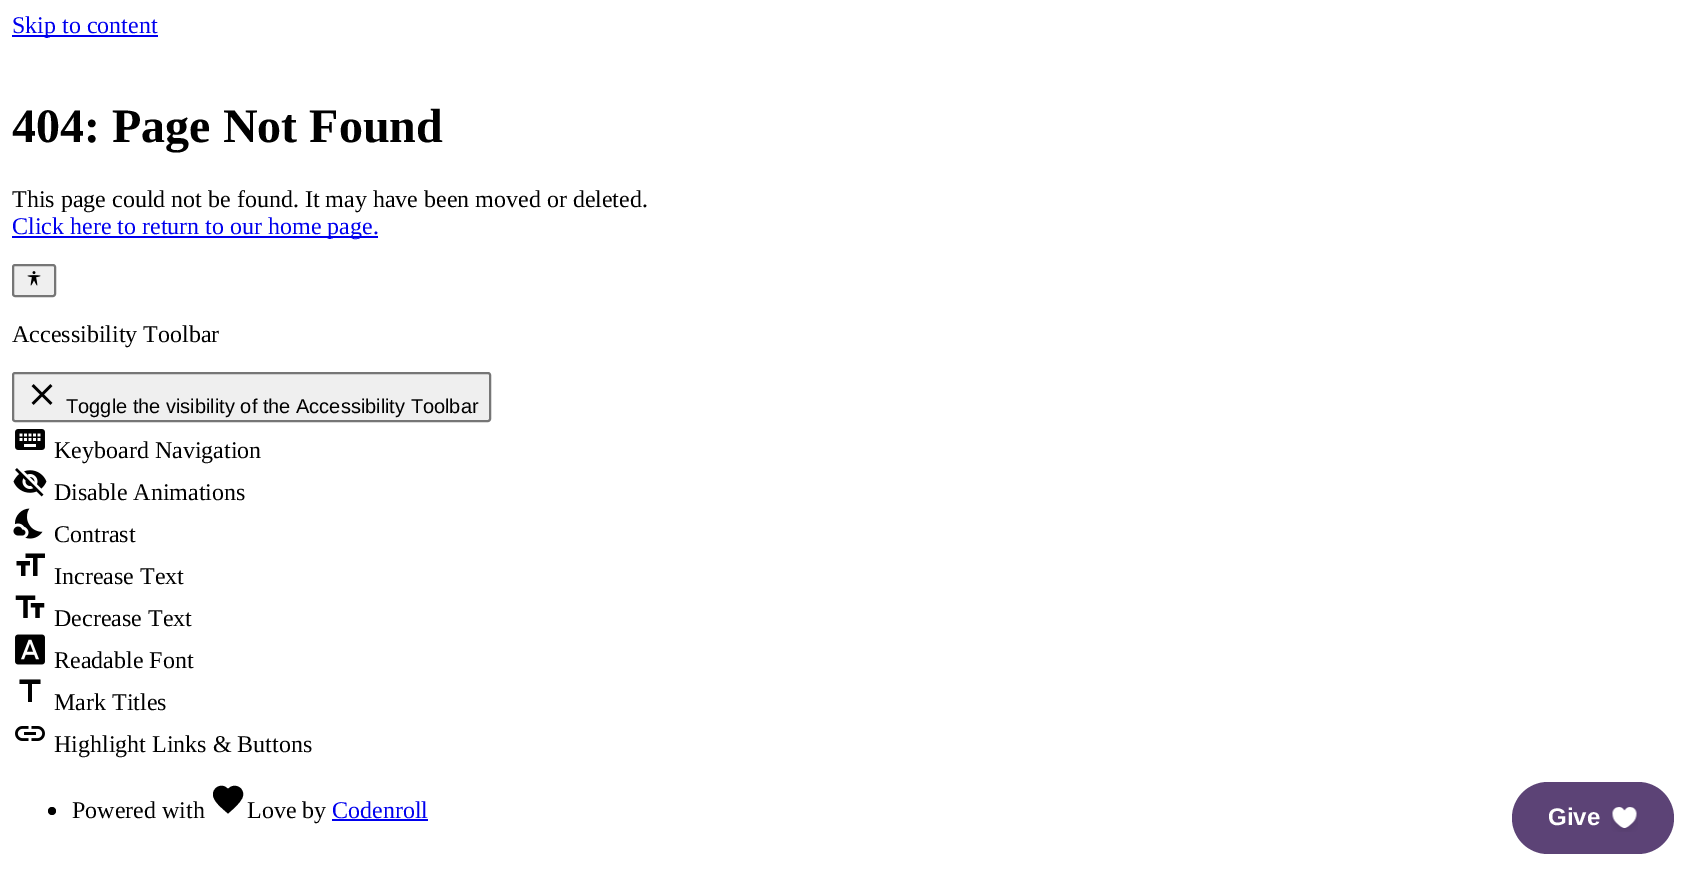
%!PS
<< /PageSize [1697 877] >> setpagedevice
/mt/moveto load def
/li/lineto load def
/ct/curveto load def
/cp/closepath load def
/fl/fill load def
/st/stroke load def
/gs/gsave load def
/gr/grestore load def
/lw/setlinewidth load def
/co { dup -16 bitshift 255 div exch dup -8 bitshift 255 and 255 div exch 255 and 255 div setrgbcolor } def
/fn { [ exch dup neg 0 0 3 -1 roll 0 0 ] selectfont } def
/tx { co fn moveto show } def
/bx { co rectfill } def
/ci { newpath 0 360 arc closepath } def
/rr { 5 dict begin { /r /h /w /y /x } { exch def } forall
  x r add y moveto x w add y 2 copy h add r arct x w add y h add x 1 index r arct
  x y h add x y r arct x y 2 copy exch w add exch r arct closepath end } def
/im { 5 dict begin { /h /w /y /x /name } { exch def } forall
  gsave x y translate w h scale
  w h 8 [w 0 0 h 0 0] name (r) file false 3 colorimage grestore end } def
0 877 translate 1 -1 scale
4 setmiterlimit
0 0 1697 877 16#FFFFFF bx
12 35 146 2 16#0000EE bx
12 236 366 2 16#0000EE bx
16#EFEFEF co
13 265 42 31 2 rr gs fl gr
16#767676 co
2 lw
st
(media/1.raw) 27 271 14 15 im
16#EFEFEF co
13 373 477 48 2 rr gs fl gr
16#767676 co
st
(media/2.raw) 31 384 22 21 im
(media/3.raw) 15 429 30 21 im
(media/4.raw) 13 468 34 29 im
(media/5.raw) 13 508 30 31 im
(media/6.raw) 16 553 29 23 im
(media/7.raw) 15 595 30 23 im
(media/8.raw) 15 634 30 31 im
16#000000 co
19.5 679.5 mt 40.5 679.5 li 40.5 684 li 32 684 li 32 702 li 28 702 li 28 684 li 19.5 684 li cp fl
(media/9.raw) 15 726 30 15 im
52 811 4 ci fl
228 813.5 mt 223.5 809.5 216.5 804 214 798.5 ct 209.5 789.5 221 781 228 789 ct 234.5 781.5 246 788.5 242.5 797.5 ct 239.5 804 233 809 228 813.5 ct cp fl
332 819 96 2 16#0000EE bx
16#5C4376 co
1512 782 162 72 36 rr fl
(media/10.raw) 1611 807 27 25 im
(Skip to content) 12 33 /LiberationSerif-Regular 24 16#0000EE tx
(404: Page Not Found) 12 142 /LiberationSerif-Bold 48 16#000000 tx
(This page could not be found. It may have been moved or deleted.) 12 207 /LiberationSerif-Regular 24 16#000000 tx
(Click here to return to our home page.) 12 234 /LiberationSerif-Regular 24 16#0000EE tx
(Accessibility Toolbar) 12 342 /LiberationSerif-Regular 24 16#000000 tx
(Toggle the visibility of the Accessibility Toolbar) 66 413 /LiberationSans-Regular 20 16#000000 tx
(Keyboard Navigation) 54 458 /LiberationSerif-Regular 24 16#000000 tx
(Disable Animations) 54 500 /LiberationSerif-Regular 24 16#000000 tx
(Contrast) 54 542 /LiberationSerif-Regular 24 16#000000 tx
(Increase Text) 54 584 /LiberationSerif-Regular 24 16#000000 tx
(Decrease Text) 54 626 /LiberationSerif-Regular 24 16#000000 tx
(Readable Font) 54 668 /LiberationSerif-Regular 24 16#000000 tx
(Mark Titles) 54 710 /LiberationSerif-Regular 24 16#000000 tx
(Highlight Links & Buttons) 54 752 /LiberationSerif-Regular 24 16#000000 tx
(Powered with) 72 818 /LiberationSerif-Regular 24 16#000000 tx
(Love by) 247 818 /LiberationSerif-Regular 24 16#000000 tx
(Codenroll) 332 818 /LiberationSerif-Regular 24 16#0000EE tx
(Give) 1548 825 /LiberationSans-Bold 24 16#FFFFFF tx
showpage
